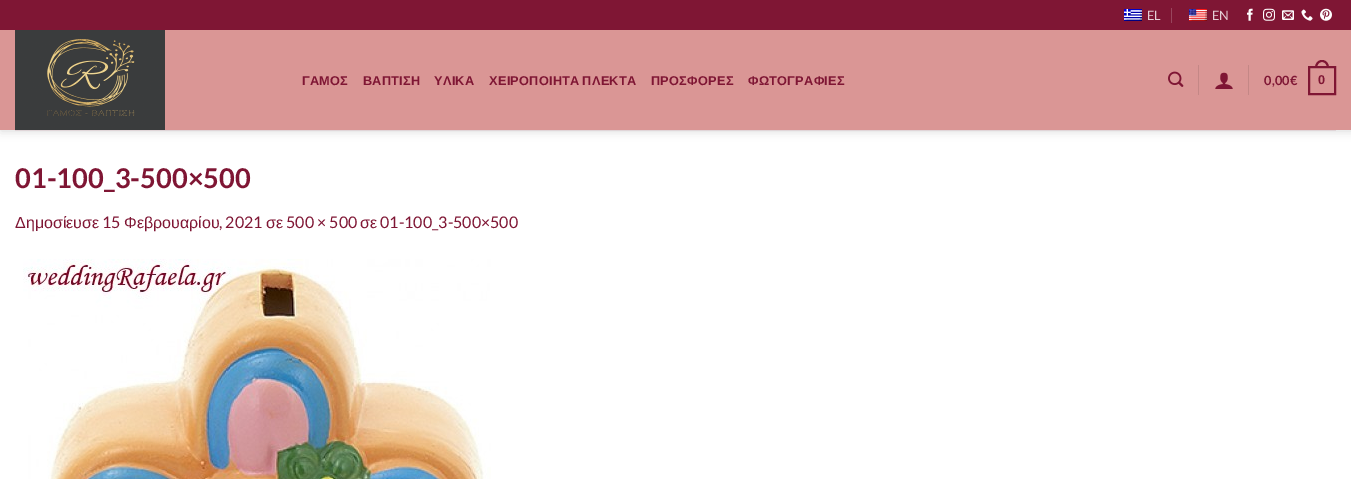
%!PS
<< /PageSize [1351 479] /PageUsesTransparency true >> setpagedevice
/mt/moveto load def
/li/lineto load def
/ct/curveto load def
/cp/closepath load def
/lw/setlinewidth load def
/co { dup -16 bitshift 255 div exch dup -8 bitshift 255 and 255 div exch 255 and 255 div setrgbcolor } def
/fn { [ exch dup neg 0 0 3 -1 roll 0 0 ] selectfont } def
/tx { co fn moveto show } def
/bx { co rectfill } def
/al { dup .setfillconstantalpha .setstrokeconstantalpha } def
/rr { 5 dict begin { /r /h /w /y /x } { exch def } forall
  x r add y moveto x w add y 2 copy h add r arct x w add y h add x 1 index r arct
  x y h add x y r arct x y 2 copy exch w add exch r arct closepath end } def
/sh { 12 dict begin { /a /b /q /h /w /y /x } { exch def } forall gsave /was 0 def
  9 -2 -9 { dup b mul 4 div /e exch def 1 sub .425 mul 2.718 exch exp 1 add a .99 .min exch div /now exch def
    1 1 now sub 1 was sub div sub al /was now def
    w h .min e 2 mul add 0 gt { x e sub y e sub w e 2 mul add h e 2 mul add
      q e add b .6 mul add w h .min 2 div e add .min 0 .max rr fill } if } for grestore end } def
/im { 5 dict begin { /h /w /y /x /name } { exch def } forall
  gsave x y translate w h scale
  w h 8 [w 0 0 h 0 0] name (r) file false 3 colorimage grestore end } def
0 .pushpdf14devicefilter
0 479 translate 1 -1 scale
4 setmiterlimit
0 0 1351 479 16#FFFFFF bx
16#000000 co
1 1 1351 130 0 5 .15 sh
0 0 1351 30 16#7F1634 bx
(media/1.raw) 1124 9 18 12 im
1171 8 1 15 16#99455D bx
(media/2.raw) 1189 9 18 12 im
(media/3.raw) 1247 8 6 13 im
(media/4.raw) 1263 8 12 13 im
(media/5.raw) 1282 10 12 10 im
(media/6.raw) 1301 9 12 12 im
(media/7.raw) 1320 8 12 13 im
0 30 1351 100 16#DA9695 bx
(media/8.raw) 15 30 150 100 im
(media/9.raw) 1168 71 16 16 im
1198 65 1 30 16#C48786 bx
(media/10.raw) 1215 72 18 17 im
1248 65 1 30 16#C48786 bx
16#7F1634 co
2 lw
1309 67 26 27 rectstroke
1322 60 mt 1326.5 60 1329 64 1329 68 ct 1315 68 li 1315 64 1317.5 60 1322 60 ct cp 1322 62 mt 1325.5 62 1327 65 1327 68 ct 1317 68 li 1317 65 1318.5 62 1322 62 ct cp eofill
15 130 1321 1 16#E0D5D8 bx
(media/11.raw) 23 259 468 220 im
(EL) 1147 20 /Lato-Regular 12.75 16#E5D0D6 tx
(EN) 1212 20 /Lato-Regular 12.75 16#E5D0D6 tx
/LiberationSans-Bold 12.75 fn
16#7F1634 co
302 85 mt .25 0 (ΓΑΜΟΣ) ashow
363 85 mt .25 0 (ΒΑΠΤΙΣΗ) ashow
434 85 mt .25 0 (ΥΛΙΚΑ) ashow
489 85 mt -1 0 32 .25 0 (ΧΕΙΡΟΠΟΙΗΤΑ ΠΛΕΚΤΑ) awidthshow
651 85 mt .25 0 (ΠΡΟΣΦΟΡΕΣ) ashow
748 85 mt .25 0 (ΦΩΤΟΓΡΑΦΙΕΣ) ashow
/Lato-Bold 12.75 fn
1264 85 mt .25 0 (0,00€) ashow
/LiberationSans-Bold 12.75 fn
1318 84 mt .25 0 (0) ashow
(01-100_3-500×500) 15 188 /Lato-Bold 27.25 16#7F1634 tx
(Δημοσίευσε) 15 228 /LiberationSans-Regular 16 16#7F1634 tx
(15) 102 228 /Lato-Regular 16 16#7F1634 tx
(Φεβρουαρίου) 124 228 /LiberationSans-Regular 16 16#7F1634 tx
(, 2021) 219 228 /Lato-Regular 16 16#7F1634 tx
(σε) 266 228 /LiberationSans-Regular 16 16#7F1634 tx
(500 × 500) 286 228 /Lato-Regular 16 16#7F1634 tx
(σε) 360 228 /LiberationSans-Regular 16 16#7F1634 tx
(01-100_3-500×500) 380 228 /Lato-Regular 16 16#7F1634 tx
.poppdf14devicefilter showpage
